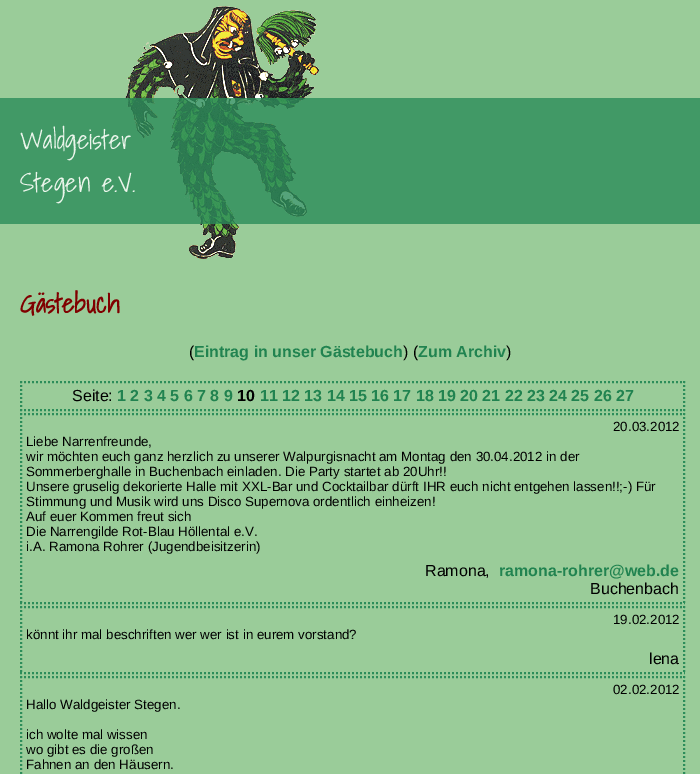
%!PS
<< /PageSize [700 774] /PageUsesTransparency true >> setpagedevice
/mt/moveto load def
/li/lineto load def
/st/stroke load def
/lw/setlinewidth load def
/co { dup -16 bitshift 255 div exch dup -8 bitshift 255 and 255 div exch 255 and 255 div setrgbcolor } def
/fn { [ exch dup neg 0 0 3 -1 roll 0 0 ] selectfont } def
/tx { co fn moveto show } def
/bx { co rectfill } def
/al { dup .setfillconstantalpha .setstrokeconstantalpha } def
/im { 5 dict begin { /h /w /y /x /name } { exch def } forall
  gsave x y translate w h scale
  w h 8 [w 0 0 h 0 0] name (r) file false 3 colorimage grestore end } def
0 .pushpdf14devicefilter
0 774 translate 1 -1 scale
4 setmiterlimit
0 0 700 774 16#9ACC99 bx
(media/1.raw) 125 6 194 253 im
0.8 al
0 98 700 126 16#2B8C59 bx
1 al
16#2C8D5A co
2 lw
[2 2] 0 setdash
20 382 mt 685 382 li st
684 381 mt 684 411 li st
20 410 mt 685 410 li st
21 381 mt 21 411 li st
20 414 mt 685 414 li st
684 413 mt 684 604 li st
20 603 mt 685 603 li st
21 413 mt 21 604 li st
20 607 mt 685 607 li st
684 606 mt 684 674 li st
20 673 mt 685 673 li st
21 606 mt 21 674 li st
20 677 mt 685 677 li st
684 676 mt 684 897 li st
21 676 mt 21 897 li st
(Waldgeister) 20 149 /ShadowsIntoLight-Regular 26.5 16#EBF5EB tx
(Stegen e.V.) 20 192 /ShadowsIntoLight-Regular 26.5 16#EBF5EB tx
(Gästebuch) 20 313 /ShadowsIntoLight-Bold 26.5 16#800000 tx
(\() 189 357 /LiberationSans-Regular 16 16#000000 tx
(Eintrag in unser Gästebuch) 194 357 /LiberationSans-Bold 16 16#218350 tx
(\) \() 403 357 /LiberationSans-Regular 16 16#000000 tx
(Zum Archiv) 418 357 /LiberationSans-Bold 16 16#218350 tx
(\)) 506 357 /LiberationSans-Regular 16 16#000000 tx
(Seite:) 72 401 /LiberationSans-Regular 16 16#000000 tx
(1 2 3 4 5 6 7 8 9) 117 401 /LiberationSans-Bold 16 16#218350 tx
(10) 237 401 /LiberationSans-Bold 16 16#000000 tx
(11 12 13 14 15 16 17 18 19 20 21 22 23 24 25 26 27) 260 401 /LiberationSans-Bold 16 16#218350 tx
(20.03.2012) 613 431 /LiberationSans-Regular 13.35 16#000000 tx
(Liebe Narrenfreunde,) 26 446 /LiberationSans-Regular 13.35 16#000000 tx
(wir möchten euch ganz herzlich zu unserer Walpurgisnacht am Montag den 30.04.2012 in der) 26 461 /LiberationSans-Regular 13.35 16#000000 tx
(Sommerberghalle in Buchenbach einladen. Die Party startet ab 20Uhr!!) 26 476 /LiberationSans-Regular 13.35 16#000000 tx
(Unsere gruselig dekorierte Halle mit XXL-Bar und Cocktailbar dürft IHR euch nicht entgehen lassen!!;-\) Für) 26 491 /LiberationSans-Regular 13.35 16#000000 tx
(Stimmung und Musik wird uns Disco Supernova ordentlich einheizen!) 26 506 /LiberationSans-Regular 13.35 16#000000 tx
(Auf euer Kommen freut sich) 26 521 /LiberationSans-Regular 13.35 16#000000 tx
(Die Narrengilde Rot-Blau Höllental e.V.) 26 536 /LiberationSans-Regular 13.35 16#000000 tx
(i.A. Ramona Rohrer \(Jugendbeisitzerin\)) 26 551 /LiberationSans-Regular 13.35 16#000000 tx
(Ramona,) 425 576 /LiberationSans-Regular 16 16#000000 tx
(ramona-rohrer@web.de) 499 576 /LiberationSans-Bold 16 16#218350 tx
(Buchenbach) 590 594 /LiberationSans-Regular 16 16#000000 tx
(19.02.2012) 613 624 /LiberationSans-Regular 13.35 16#000000 tx
(könnt ihr mal beschriften wer wer ist in eurem vorstand?) 26 639 /LiberationSans-Regular 13.35 16#000000 tx
(lena) 649 664 /LiberationSans-Regular 16 16#000000 tx
(02.02.2012) 613 694 /LiberationSans-Regular 13.35 16#000000 tx
(Hallo Waldgeister Stegen.) 26 709 /LiberationSans-Regular 13.35 16#000000 tx
(ich wolte mal wissen) 26 739 /LiberationSans-Regular 13.35 16#000000 tx
(wo gibt es die großen) 26 754 /LiberationSans-Regular 13.35 16#000000 tx
(Fahnen an den Häusern.) 26 769 /LiberationSans-Regular 13.35 16#000000 tx
.poppdf14devicefilter showpage
